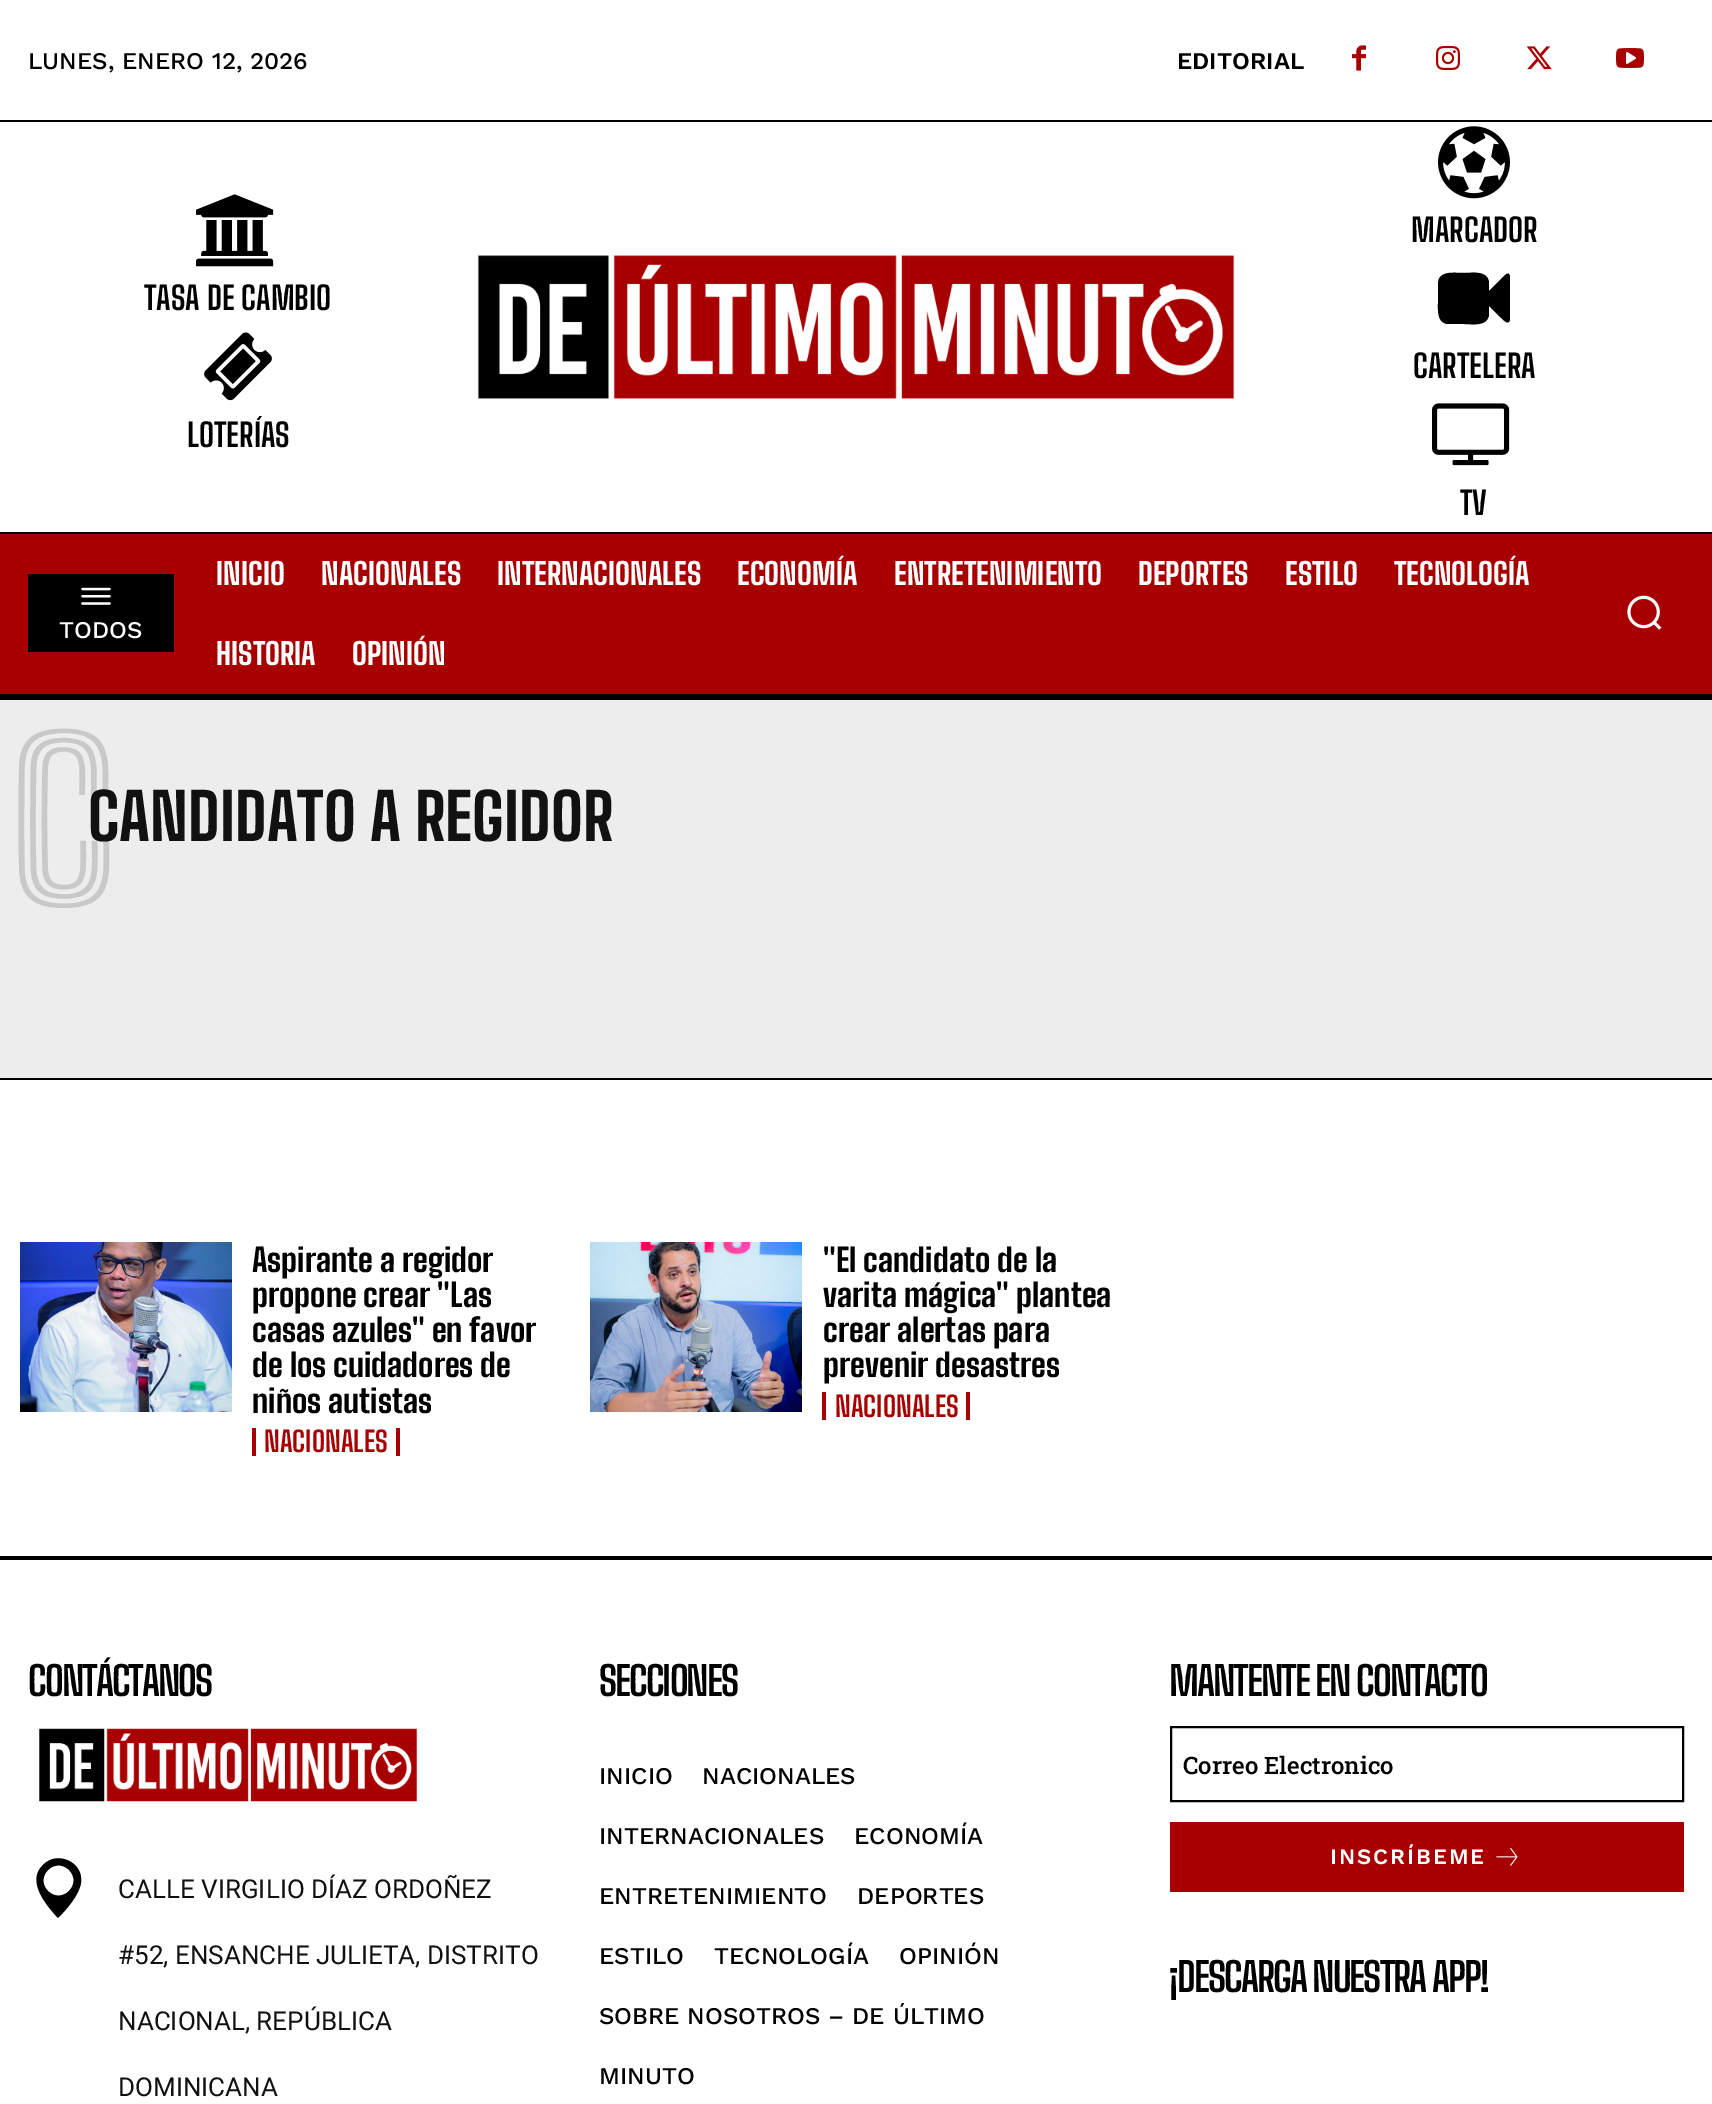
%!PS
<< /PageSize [1712 2104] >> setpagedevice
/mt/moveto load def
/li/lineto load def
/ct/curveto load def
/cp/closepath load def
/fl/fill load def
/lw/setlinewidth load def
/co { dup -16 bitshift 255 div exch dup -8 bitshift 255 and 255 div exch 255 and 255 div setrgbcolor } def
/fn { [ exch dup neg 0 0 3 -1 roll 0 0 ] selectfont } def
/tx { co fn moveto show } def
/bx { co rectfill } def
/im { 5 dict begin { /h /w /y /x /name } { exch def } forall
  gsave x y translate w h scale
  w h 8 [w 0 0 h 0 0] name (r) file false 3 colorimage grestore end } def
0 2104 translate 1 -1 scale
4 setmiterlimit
0 0 1712 2104 16#FFFFFF bx
(media/1.raw) 1352 45 14 26 im
(media/2.raw) 1436 46 24 24 im
(media/3.raw) 1526 46 26 24 im
(media/4.raw) 1616 48 28 20 im
0 120 1712 2 16#000000 bx
(media/5.raw) 196 194 78 73 im
(media/6.raw) 204 332 68 69 im
(media/7.raw) 477 255 758 144 im
(media/8.raw) 1438 126 72 73 im
1510 276 mt 1510 320 li 1509 322 li 1506 324 1502 318 1500 317 ct 1489 306 li 1489 315 li 1487 327 1472 324 1464 324 ct 1447 324 li 1437 322 1438 311 1438 303 ct 1438 284 li 1438 270 1454 273 1464 273 ct 1472 273 1487 270 1489 282 ct 1489 291 li 1500 280 li 1502 279 1506 272 1509 274 ct cp fl
(media/9.raw) 1432 403 78 63 im
0 534 1712 160 16#A80000 bx
0 532 1712 2 16#000000 bx
0 694 1712 6 16#000000 bx
28 574 146 78 16#000000 bx
(media/10.raw) 81 587 30 18 im
(media/11.raw) 1627 595 35 35 im
0 700 1712 378 16#EDEDED bx
0 1078 1712 2 16#000000 bx
(media/12.raw) 20 1242 212 170 im
396 1428 4 28 16#A80000 bx
252 1428 4 28 16#A80000 bx
(media/13.raw) 590 1242 212 170 im
966 1392 4 28 16#A80000 bx
822 1392 4 28 16#A80000 bx
0 1556 1712 4 16#000000 bx
(media/14.raw) 39 1728 379 74 im
43 1865 mt 57 1850 84 1862 81 1883 ct 79 1895 67 1909 58 1918 ct 46 1905 26 1881 43 1865 ct cp 69 1870 mt 55 1856 34 1877 48 1891 ct 62 1905 83 1884 69 1870 ct cp fl
2 lw
1171 1727 512 74 rectstroke
1170 1822 514 70 16#A80000 bx
(media/15.raw) 1496 1848 22 18 im
(LUNES, ENERO 12, 2026) 28 69 /WorkSans-Medium 24 16#000000 tx
(EDITORIAL) 1177 69 /WorkSans-SemiBold 24 16#000000 tx
(TASA DE CAMBIO) 144 310 /BigShouldersText-Bold 32 16#000000 tx
(LOTERÍAS) 187 447 /BigShouldersText-Bold 32 16#000000 tx
(MARCADOR) 1411 242 /BigShouldersText-Bold 32 16#000000 tx
(CARTELERA) 1413 378 /BigShouldersText-Bold 32 16#000000 tx
(TV) 1460 515 /BigShouldersText-Bold 32 16#000000 tx
(TODOS) 59 638 /WorkSans-Medium 24 16#FFFFFF tx
(INICIO) 216 585 /BigShouldersText-ExtraBold 30 16#FFFFFF tx
(NACIONALES) 321 585 /BigShouldersText-ExtraBold 30 16#FFFFFF tx
(INTERNACIONALES) 497 585 /BigShouldersText-ExtraBold 30 16#FFFFFF tx
(ECONOMÍA) 737 585 /BigShouldersText-ExtraBold 30 16#FFFFFF tx
(ENTRETENIMIENTO) 894 585 /BigShouldersText-ExtraBold 30 16#FFFFFF tx
(DEPORTES) 1138 585 /BigShouldersText-ExtraBold 30 16#FFFFFF tx
(ESTILO) 1285 585 /BigShouldersText-ExtraBold 30 16#FFFFFF tx
(TECNOLOGÍA) 1394 585 /BigShouldersText-ExtraBold 30 16#FFFFFF tx
(HISTORIA) 216 665 /BigShouldersText-ExtraBold 30 16#FFFFFF tx
(OPINIÓN) 352 665 /BigShouldersText-ExtraBold 30 16#FFFFFF tx
(C) 9 906 /BigShouldersInlineText-ExtraBold 220 16#C9C9C9 tx
(CANDIDATO A REGIDOR) 88 841 /BigShouldersText-ExtraBold 64 16#111111 tx
(Aspirante a regidor) 252 1272 /BigShouldersText-ExtraBold 32 16#000000 tx
(propone crear "Las) 252 1307 /BigShouldersText-ExtraBold 32 16#000000 tx
(casas azules" en favor) 252 1342 /BigShouldersText-ExtraBold 32 16#000000 tx
(de los cuidadores de) 252 1377 /BigShouldersText-ExtraBold 32 16#000000 tx
(niños autistas) 252 1413 /BigShouldersText-ExtraBold 32 16#000000 tx
(NACIONALES) 264 1452 /BigShouldersText-Bold 28 16#A80000 tx
("El candidato de la) 823 1272 /BigShouldersText-ExtraBold 32 16#000000 tx
(varita mágica" plantea) 823 1307 /BigShouldersText-ExtraBold 32 16#000000 tx
(crear alertas para) 823 1342 /BigShouldersText-ExtraBold 32 16#000000 tx
(prevenir desastres) 823 1377 /BigShouldersText-ExtraBold 32 16#000000 tx
(NACIONALES) 835 1417 /BigShouldersText-Bold 28 16#A80000 tx
/BigShouldersText-Bold 40 fn
16#000000 co
28 1696 mt -2 0 (CONTÁCTANOS) ashow
(CALLE VIRGILIO DÍAZ ORDOÑEZ) 118 1898 /Roboto-Regular 26 16#111111 tx
(#52, ENSANCHE JULIETA, DISTRITO) 118 1964 /Roboto-Regular 26 16#111111 tx
(NACIONAL, REPÚBLICA) 118 2030 /Roboto-Regular 26 16#111111 tx
(DOMINICANA) 118 2096 /Roboto-Regular 26 16#111111 tx
/BigShouldersText-Bold 40 fn
16#000000 co
599 1696 mt -2 0 (SECCIONES) ashow
(INICIO) 599 1784 /WorkSans-Medium 24 16#000000 tx
(NACIONALES) 702 1784 /WorkSans-Medium 24 16#000000 tx
(INTERNACIONALES) 599 1844 /WorkSans-Medium 24 16#000000 tx
(ECONOMÍA) 854 1844 /WorkSans-Medium 24 16#000000 tx
(ENTRETENIMIENTO) 599 1904 /WorkSans-Medium 24 16#000000 tx
(DEPORTES) 857 1904 /WorkSans-Medium 24 16#000000 tx
(ESTILO) 599 1964 /WorkSans-Medium 24 16#000000 tx
(TECNOLOGÍA) 714 1964 /WorkSans-Medium 24 16#000000 tx
(OPINIÓN) 899 1964 /WorkSans-Medium 24 16#000000 tx
(SOBRE NOSOTROS – DE ÚLTIMO) 599 2024 /WorkSans-Medium 24 16#000000 tx
(MINUTO) 599 2084 /WorkSans-Medium 24 16#000000 tx
/BigShouldersText-Bold 40 fn
1169 1696 mt -2 0 (MANTENTE EN CONTACTO) ashow
(Correo Electronico) 1183 1774 /RobotoSlab-Medium 24 16#000000 tx
/WorkSans-SemiBold 22 fn
16#FFFFFF co
1330 1864 mt 2 0 (INSCRÍBEME) ashow
/BigShouldersText-Bold 40 fn
16#000000 co
1169 1992 mt -2 0 (¡DESCARGA NUESTRA APP!) ashow
showpage
